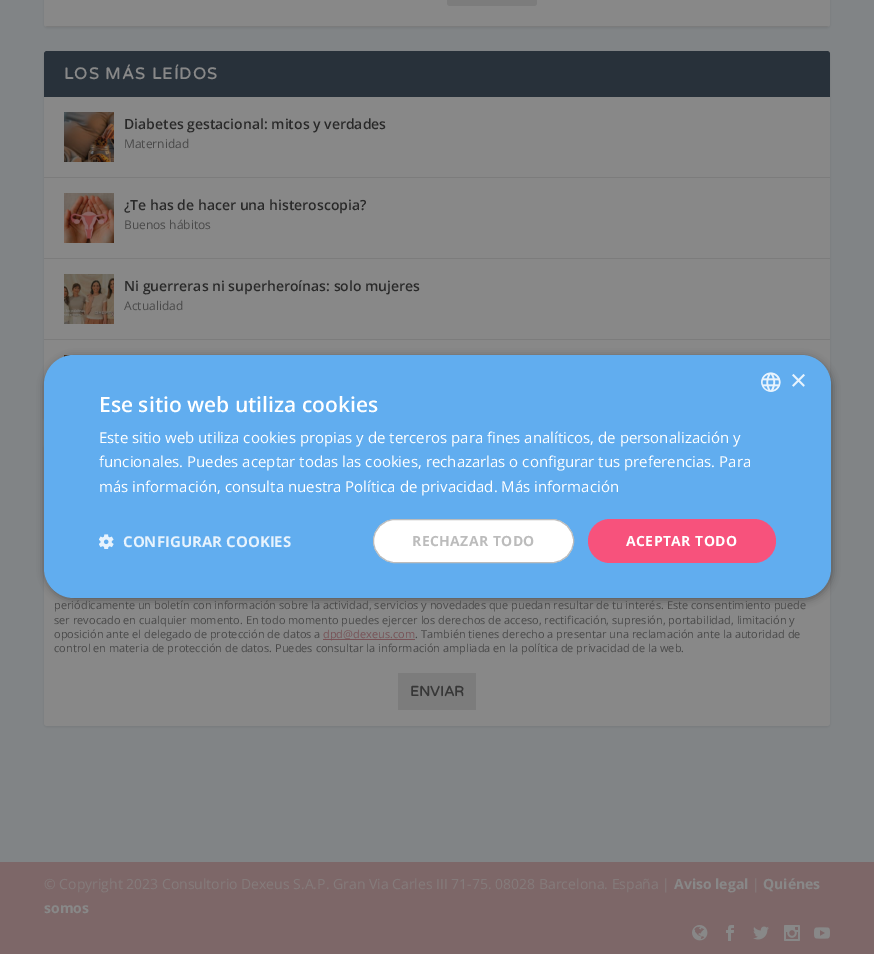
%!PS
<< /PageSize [874 954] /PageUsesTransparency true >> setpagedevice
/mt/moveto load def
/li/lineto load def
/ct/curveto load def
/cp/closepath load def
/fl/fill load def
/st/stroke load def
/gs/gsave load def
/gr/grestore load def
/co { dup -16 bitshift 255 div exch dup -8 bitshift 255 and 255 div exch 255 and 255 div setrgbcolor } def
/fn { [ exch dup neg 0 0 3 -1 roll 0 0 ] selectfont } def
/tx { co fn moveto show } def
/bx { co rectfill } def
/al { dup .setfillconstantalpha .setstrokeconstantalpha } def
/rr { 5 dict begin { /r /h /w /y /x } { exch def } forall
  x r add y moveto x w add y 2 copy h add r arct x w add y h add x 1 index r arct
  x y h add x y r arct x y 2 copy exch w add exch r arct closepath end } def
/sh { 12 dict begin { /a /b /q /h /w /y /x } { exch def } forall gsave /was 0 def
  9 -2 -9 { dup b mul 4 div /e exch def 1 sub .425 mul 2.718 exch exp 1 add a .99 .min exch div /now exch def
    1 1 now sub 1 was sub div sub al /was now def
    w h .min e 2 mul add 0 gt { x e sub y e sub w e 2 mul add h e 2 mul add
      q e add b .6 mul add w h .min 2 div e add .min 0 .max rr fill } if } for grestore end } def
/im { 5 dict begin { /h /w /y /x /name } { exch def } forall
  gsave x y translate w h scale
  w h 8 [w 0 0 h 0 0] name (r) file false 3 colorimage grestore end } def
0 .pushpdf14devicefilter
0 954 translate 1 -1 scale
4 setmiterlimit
0 0 874 954 16#818486 bx
16#090909 co
44 -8 786 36 3 1.5 .1 sh
16#888888 co
44 -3 786 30 3 rr fl
16#7B7B7B co
47 27 mt 827 27 li 829 26 li 45 26 li cp fl
16#7C7C7C co
447 -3 90 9 3 rr fl
16#090909 co
44 52 786 369 3 1.5 .1 sh
16#888888 co
44 51 786 369 3 rr fl
16#28313A co
47 51 mt 827 51 li 828.5 51 830 52.5 830 54 ct 830 97 li 44 97 li 44 54 li 44 52.5 45.5 51 47 51 ct cp fl
44 177 786 1 16#7C7C7C bx
(media/1.raw) 64 112 50 50 im
44 258 786 1 16#7C7C7C bx
(media/2.raw) 64 193 50 50 im
44 339 786 1 16#7C7C7C bx
(media/3.raw) 64 274 50 50 im
(media/4.raw) 64 355 10 2 im
16#090909 co
44 445 786 282 3 1.5 .1 sh
16#888888 co
44 444 786 282 3 rr fl
323 639 92 1 16#775357 bx
398 673 78 37 16#7C7C7C bx
0 862 874 92 16#7D6768 bx
(media/5.raw) 692 925 16 16 im
(media/6.raw) 726 925 8 16 im
(media/7.raw) 753 926 16 14 im
(media/8.raw) 784 925 16 16 im
(media/9.raw) 814 927 16 12 im
16#000000 co
45 357 787 243 30 4 .35 sh
16#61ADEF co
44 355 787 243 30 rr fl
(media/10.raw) 761 372 20 20 im
(media/11.raw) 99 534 15 15 im
16#FFFFFF co
373.5 519.5 200 43 21.5 rr gs fl gr
16#BCBCBC co
st
16#F7527C co
588 519 188 44 22 rr fl
/VarelaRound-Bold 16 fn
16#888888 co
64 79 mt 1.25 0 (LOS MÁS LEÍDOS) ashow
(Diabetes gestacional: mitos y verdades) 124 129 /OpenSans-SemiBold 14 16#292929 tx
(Maternidad) 124 148 /OpenSans-Regular 12 16#494949 tx
(¿Te has de hacer una histeroscopia?) 124 210 /OpenSans-SemiBold 14 16#292929 tx
(Buenos hábitos) 124 229 /OpenSans-Regular 12 16#494949 tx
(Ni guerreras ni superheroínas: solo mujeres) 124 291 /OpenSans-SemiBold 14 16#292929 tx
(Actualidad) 124 310 /OpenSans-Regular 12 16#494949 tx
(periódicamente un boletín con información sobre la actividad, servicios y novedades que puedan resultar de tu interés. Este consentimiento puede) 54 609 /OpenSans-Regular 11 16#494949 tx
(ser revocado en cualquier momento. En todo momento puedes ejercer los derechos de acceso, rectificación, supresión, portabilidad, limitación y) 54 624 /OpenSans-Regular 11 16#494949 tx
(oposición ante el delegado de protección de datos a) 54 638 /OpenSans-Regular 11 16#494949 tx
(dpd@dexeus.com) 323 638 /OpenSans-Regular 11 16#775357 tx
(. También tienes derecho a presentar una reclamación ante la autoridad de) 415 638 /OpenSans-Regular 11 16#494949 tx
(control en materia de protección de datos. Puedes consultar la información ampliada en la política de privacidad de la web.) 54 652 /OpenSans-Regular 11 16#494949 tx
(ENVIAR) 410 696 /VarelaRound-Bold 14 16#373737 tx
(© Copyright 2023 Consultorio Dexeus S.A.P. Gran Via Carles III 71-75. 08028 Barcelona. España |) 44 889 /OpenSans-Regular 14 16#847B7B tx
(Aviso legal) 674 889 /OpenSans-Bold 14 16#888888 tx
(|) 752 889 /OpenSans-Regular 14 16#847B7B tx
(Quiénes) 763 889 /OpenSans-Bold 14 16#888888 tx
(somos) 44 913 /OpenSans-Bold 14 16#888888 tx
(×) 790 390 /LiberationSans-Regular 29 16#E7F3FD tx
(Ese sitio web utiliza cookies) 99 412 /OpenSans-SemiBold 21 16#FFFFFF tx
(Este sitio web utiliza cookies propias y de terceros para fines analíticos, de personalización y) 99 443 /OpenSans-Regular 15 16#FFFFFF tx
(funcionales. Puedes aceptar todas las cookies, rechazarlas o configurar tus preferencias. Para) 99 467 /OpenSans-Regular 15 16#FFFFFF tx
(más información, consulta nuestra Política de privacidad. Más información) 99 492 /OpenSans-Regular 15 16#FFFFFF tx
(CONFIGURAR COOKIES) 123 547 /OpenSans-Bold 15 16#E7F3FD tx
/OpenSans-Bold 14 fn
16#BCBCBC co
412 546 mt .4 0 (RECHAZAR TODO) ashow
16#FFFFFF co
626 546 mt .4 0 (ACEPTAR TODO) ashow
.poppdf14devicefilter showpage
